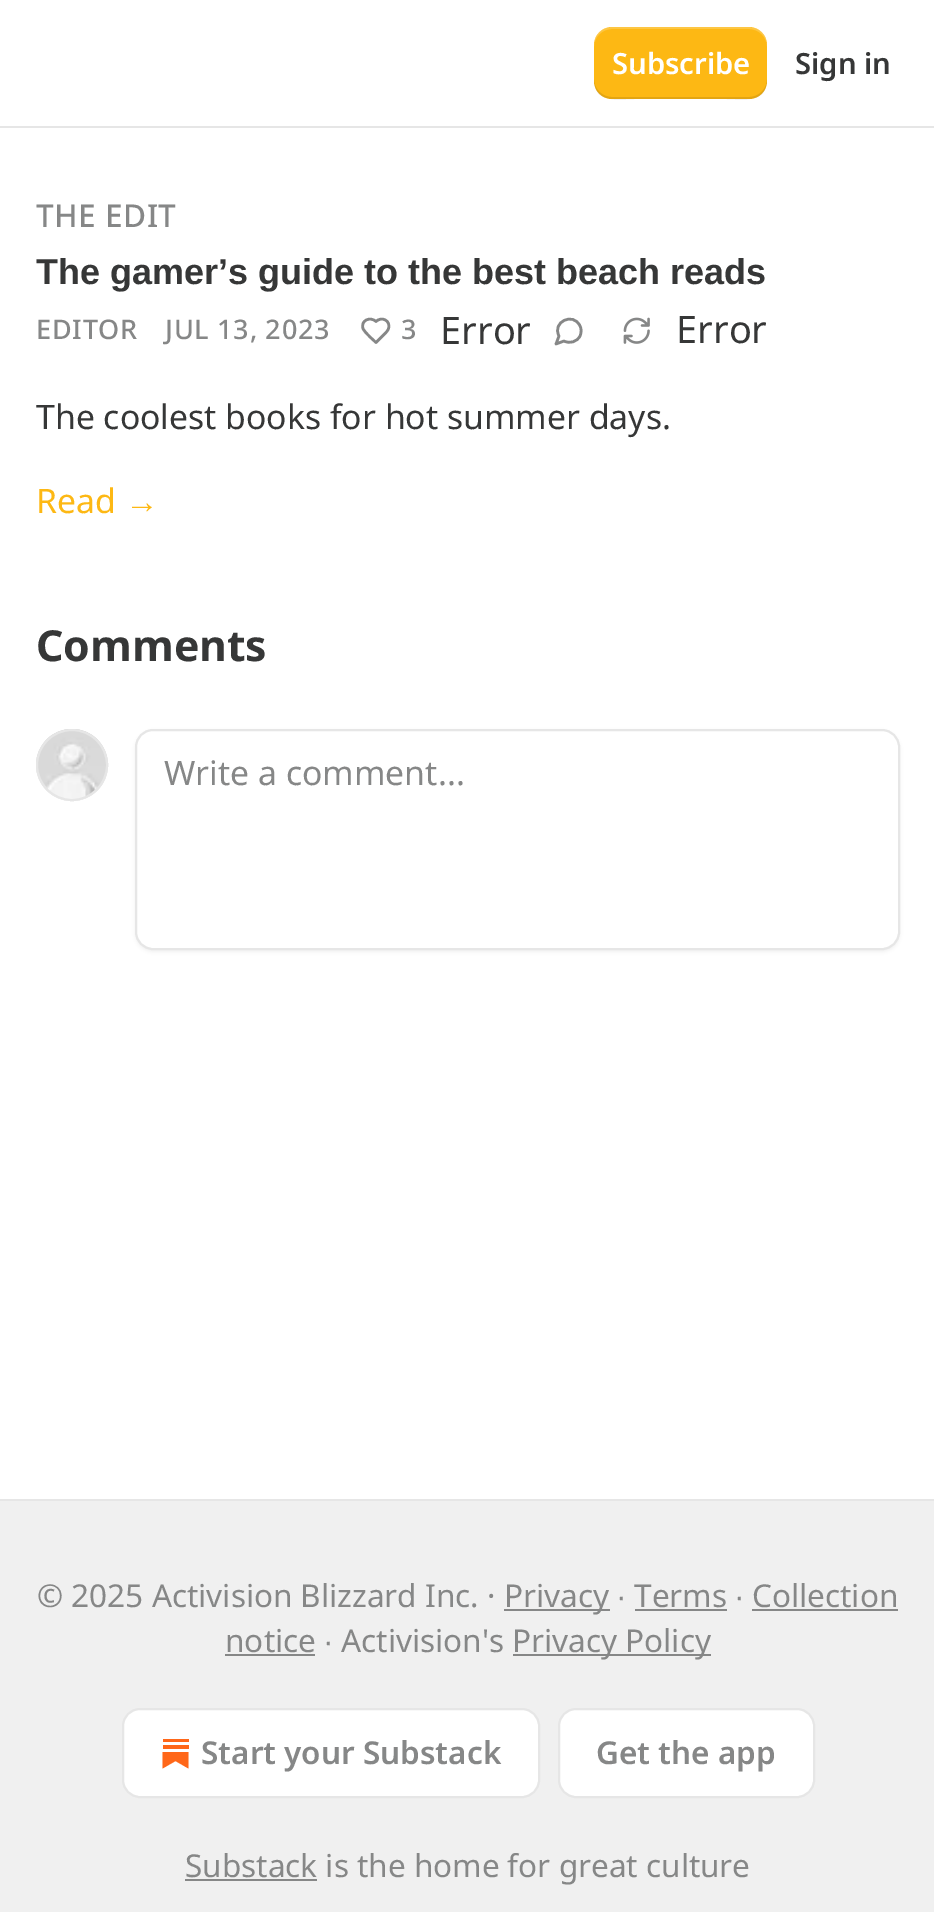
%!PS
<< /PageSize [934 1912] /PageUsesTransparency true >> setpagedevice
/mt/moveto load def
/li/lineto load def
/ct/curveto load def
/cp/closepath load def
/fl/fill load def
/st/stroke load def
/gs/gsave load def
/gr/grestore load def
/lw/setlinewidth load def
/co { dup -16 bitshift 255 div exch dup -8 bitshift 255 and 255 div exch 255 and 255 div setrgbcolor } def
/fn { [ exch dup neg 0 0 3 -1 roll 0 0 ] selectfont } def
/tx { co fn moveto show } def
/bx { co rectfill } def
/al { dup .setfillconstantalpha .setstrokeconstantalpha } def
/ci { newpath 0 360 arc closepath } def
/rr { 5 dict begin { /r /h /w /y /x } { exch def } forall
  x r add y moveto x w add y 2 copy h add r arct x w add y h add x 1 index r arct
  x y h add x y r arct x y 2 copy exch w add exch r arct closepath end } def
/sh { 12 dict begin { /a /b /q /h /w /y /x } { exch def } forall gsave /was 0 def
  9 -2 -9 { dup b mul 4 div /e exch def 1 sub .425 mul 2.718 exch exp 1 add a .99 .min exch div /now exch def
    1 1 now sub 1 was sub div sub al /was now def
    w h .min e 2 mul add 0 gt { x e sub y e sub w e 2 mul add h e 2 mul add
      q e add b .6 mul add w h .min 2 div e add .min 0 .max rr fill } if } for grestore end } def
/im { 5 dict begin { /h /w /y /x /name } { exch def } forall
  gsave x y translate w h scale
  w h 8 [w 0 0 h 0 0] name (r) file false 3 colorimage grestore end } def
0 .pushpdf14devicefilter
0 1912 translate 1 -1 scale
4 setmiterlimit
0 0 934 1912 16#FFFFFF bx
0 126 934 2 16#E6E6E6 bx
16#FDB814 co
594 27 173 72 18 rr fl
0.1 al
16#000000 co
594 79 mt 594 104 617 99 635 99 ct 726 99 li 744 99 767 104 767 79 ct 767 89 759 97 749 97 ct 612 97 li 602 97 594 89 594 79 ct cp fl
0.2 al
16#FFFFFF co
612 29 mt 749 29 li 759 29 767 37 767 47 ct 767 22 744 27 726 27 ct 635 27 li 617 27 594 22 594 47 ct 594 37 602 29 612 29 ct cp fl
1 al
16#868787 co
2.6 lw
1 setlinecap
1 setlinejoin
385 333.5 mt 386.5 332 388 330.5 388.5 328.5 ct 391 320.5 381.5 316 376 321.5 ct 370 316 360.5 320.5 363 328.5 ct 364 331.5 367.5 334 369.5 336.5 ct 376 342.5 li cp st
564 341 mt 569.5 344 577 342 580 336 ct 581.5 332.5 581.5 329 580 326 ct 573.5 311.5 551.5 322 559 336 ct 556 344 li cp st
(media/1.raw) 623 317 27 27 im
16#E6E6E6 co
2 lw
0 setlinecap
0 setlinejoin
72 765 35 ci st
(media/2.raw) 36 729 72 71 im
72 765 35 ci st
16#000000 co
135 731 765 221 18 2 .05 sh
16#FFFFFF co
136 730 763 219 17 rr gs fl gr
16#E6E6E6 co
st
0 1501 934 411 16#F0F0F0 bx
0 1499 934 2 16#E6E6E6 bx
504 1609 106 2 16#868787 bx
635 1609 92 2 16#868787 bx
752 1609 146 2 16#868787 bx
225 1654 90 2 16#868787 bx
513 1654 198 2 16#868787 bx
16#FFFFFF co
123 1709 416 88 17 rr gs fl gr
16#E6E6E6 co
st
163 1745 26 4 16#FF6719 bx
162.5 1752 mt 162.5 1768.5 li 175.5 1761 li 188.5 1768.5 li 188.5 1752 li cp fl
163 1739 26 3 16#FF6719 bx
16#FFFFFF co
559 1709 255 88 17 rr gs fl gr
16#E6E6E6 co
st
185 1879 132 2 16#868787 bx
(Subscribe) 612 74 /NotoSans-SemiBold 29.25 16#FFFFFF tx
(Sign in) 795 74 /NotoSans-SemiBold 29.25 16#363737 tx
/NotoSans-Medium 31.5 fn
16#868787 co
36 227 mt .5 0 (THE EDIT) ashow
(The gamer’s guide to the best beach reads) 36 284 /LiberationSans-Bold 36 16#363737 tx
/NotoSans-Medium 27 fn
16#868787 co
36 339 mt .75 0 (EDITOR) ashow
165 339 mt .75 0 (JUL 13, 2023) ashow
401 339 mt .75 0 (3) ashow
(Error) 440 344 /NotoSans-Regular 38 16#363737 tx
(Error) 676 343 /NotoSans-Regular 38 16#363737 tx
(The coolest books for hot summer days.) 36 429 /NotoSans-Regular 33.75 16#363737 tx
(Read) 36 513 /NotoSans-Regular 33.75 16#FDB814 tx
(→) 125 513 /LiberationSans-Regular 33.75 16#FDB814 tx
(Comments) 36 661 /NotoSans-Bold 42.75 16#363737 tx
(Write a comment...) 164 785 /NotoSans-Regular 33.75 16#868787 tx
(© 2025 Activision Blizzard Inc. ·) 37 1607 /NotoSans-Regular 31.5 16#868787 tx
(Privacy) 504 1607 /NotoSans-Regular 31.5 16#868787 tx
(∙) 617 1607 /LiberationSans-Regular 31.5 16#868787 tx
(Terms) 634 1607 /NotoSans-Regular 31.5 16#868787 tx
(∙) 735 1607 /LiberationSans-Regular 31.5 16#868787 tx
(Collection) 752 1607 /NotoSans-Regular 31.5 16#868787 tx
(notice) 225 1652 /NotoSans-Regular 31.5 16#868787 tx
(∙) 324 1652 /LiberationSans-Regular 31.5 16#868787 tx
(Activision's) 341 1652 /NotoSans-Regular 31.5 16#868787 tx
(Privacy Policy) 512 1652 /NotoSans-Regular 31.5 16#868787 tx
(Start your Substack) 201 1764 /NotoSans-SemiBold 31.5 16#868787 tx
(Get the app) 596 1764 /NotoSans-SemiBold 31.5 16#868787 tx
(Substack is the home for great culture) 185 1877 /NotoSans-Regular 31.5 16#868787 tx
.poppdf14devicefilter showpage
